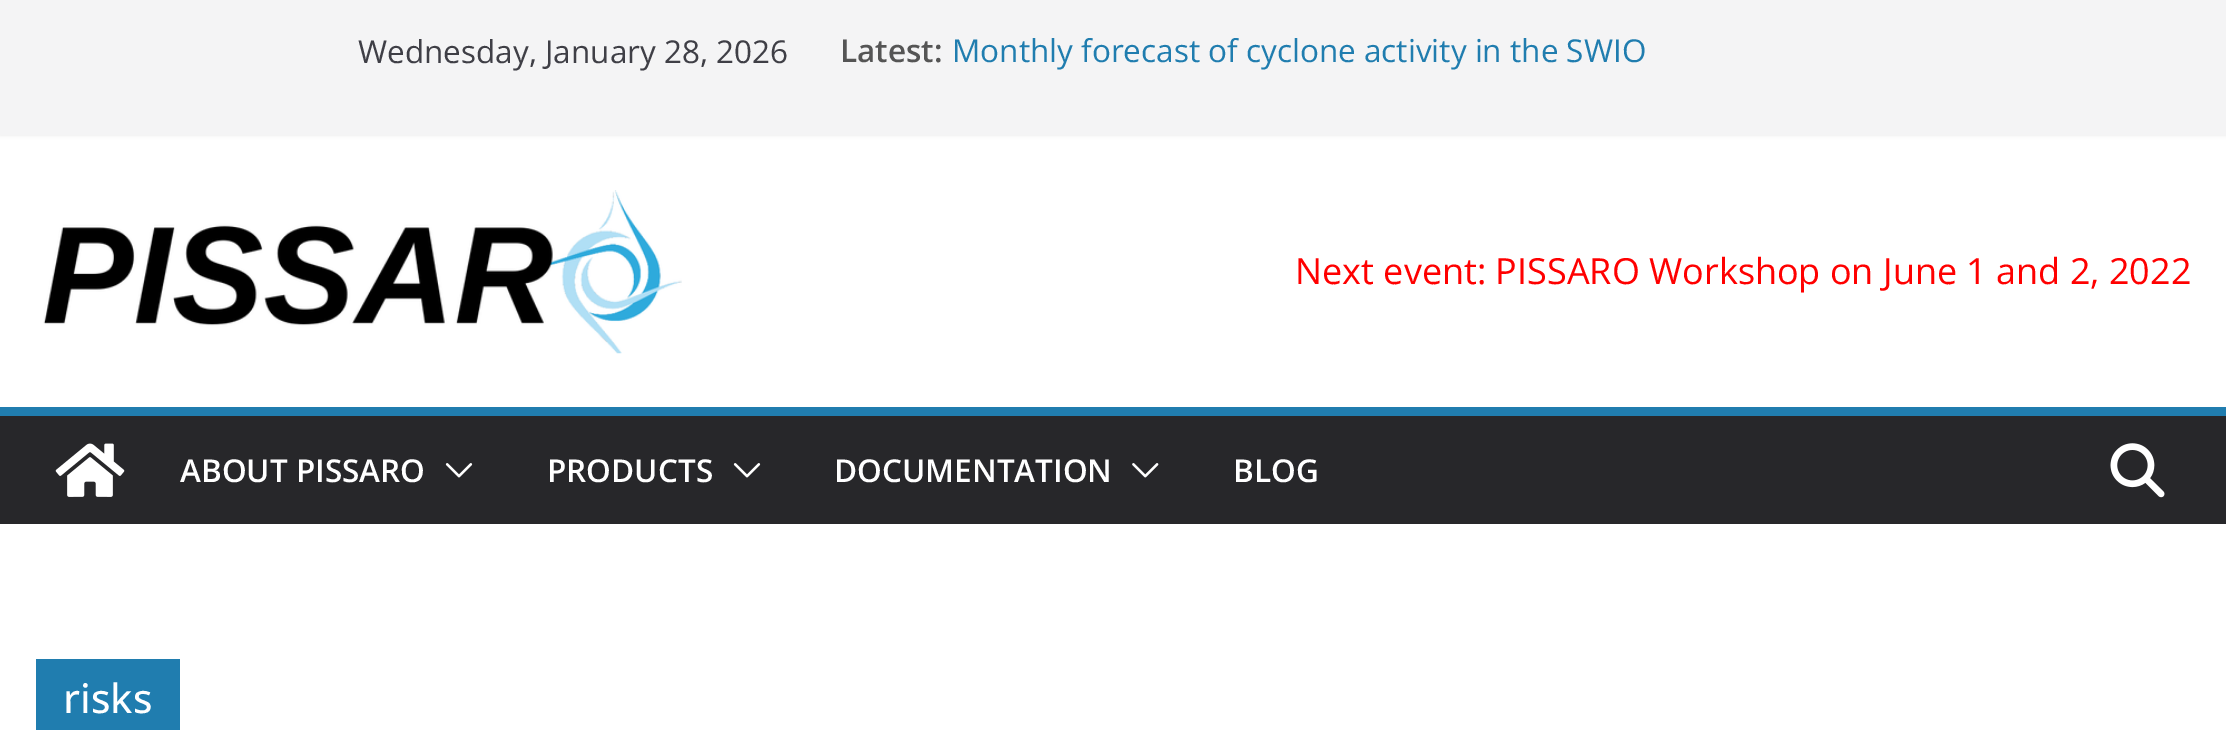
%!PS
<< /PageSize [2226 730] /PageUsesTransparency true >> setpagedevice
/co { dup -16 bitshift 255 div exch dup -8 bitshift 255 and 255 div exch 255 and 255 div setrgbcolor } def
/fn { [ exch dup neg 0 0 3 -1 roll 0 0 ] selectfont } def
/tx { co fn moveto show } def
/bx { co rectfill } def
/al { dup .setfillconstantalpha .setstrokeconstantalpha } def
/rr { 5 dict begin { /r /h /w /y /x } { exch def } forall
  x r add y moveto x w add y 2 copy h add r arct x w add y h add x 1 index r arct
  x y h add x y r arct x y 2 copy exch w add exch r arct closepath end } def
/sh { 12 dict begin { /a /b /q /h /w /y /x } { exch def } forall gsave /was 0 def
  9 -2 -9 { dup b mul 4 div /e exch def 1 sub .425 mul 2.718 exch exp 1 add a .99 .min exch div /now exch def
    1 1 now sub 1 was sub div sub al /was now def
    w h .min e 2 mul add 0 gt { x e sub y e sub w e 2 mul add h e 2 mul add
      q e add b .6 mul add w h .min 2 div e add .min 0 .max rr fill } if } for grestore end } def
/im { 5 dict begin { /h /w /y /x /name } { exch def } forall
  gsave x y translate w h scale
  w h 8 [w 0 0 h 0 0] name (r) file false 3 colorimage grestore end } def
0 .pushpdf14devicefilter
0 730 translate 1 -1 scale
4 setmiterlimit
0 0 2226 730 16#FFFFFF bx
16#000000 co
0 0 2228 135 0 2 .1 sh
0 0 2226 135 16#F4F4F5 bx
(media/1.raw) 43 190 639 164 im
0 416 2226 108 16#27272A bx
0 407 2226 9 16#207DAF bx
(media/2.raw) 55 443 70 54 im
(media/3.raw) 445 463 28 15 im
(media/3.raw) 733 463 28 15 im
(media/4.raw) 1132 463 27 15 im
(media/5.raw) 2110 443 55 55 im
36 659 144 71 16#207DAF bx
(Wednesday, January 28, 2026) 358 63 /OpenSans-Regular 31.5 16#3F3F46 tx
(Latest:) 840 62 /OpenSans-SemiBold 31.5 16#555555 tx
(Monthly forecast of cyclone activity in the SWIO) 952 62 /OpenSans-Regular 31.5 16#207DAF tx
(Next event: PISSARO Workshop on June 1 and 2, 2022) 1295 284 /OpenSans-Regular 36 16#FF0000 tx
(ABOUT PISSARO) 180 482 /OpenSans-SemiBold 31.5 16#FFFFFF tx
(PRODUCTS) 547 482 /OpenSans-SemiBold 31.5 16#FFFFFF tx
(DOCUMENTATION) 834 482 /OpenSans-SemiBold 31.5 16#FFFFFF tx
(BLOG) 1233 482 /OpenSans-SemiBold 31.5 16#FFFFFF tx
(risks) 63 713 /OpenSans-Medium 40.5 16#FFFFFF tx
.poppdf14devicefilter showpage
